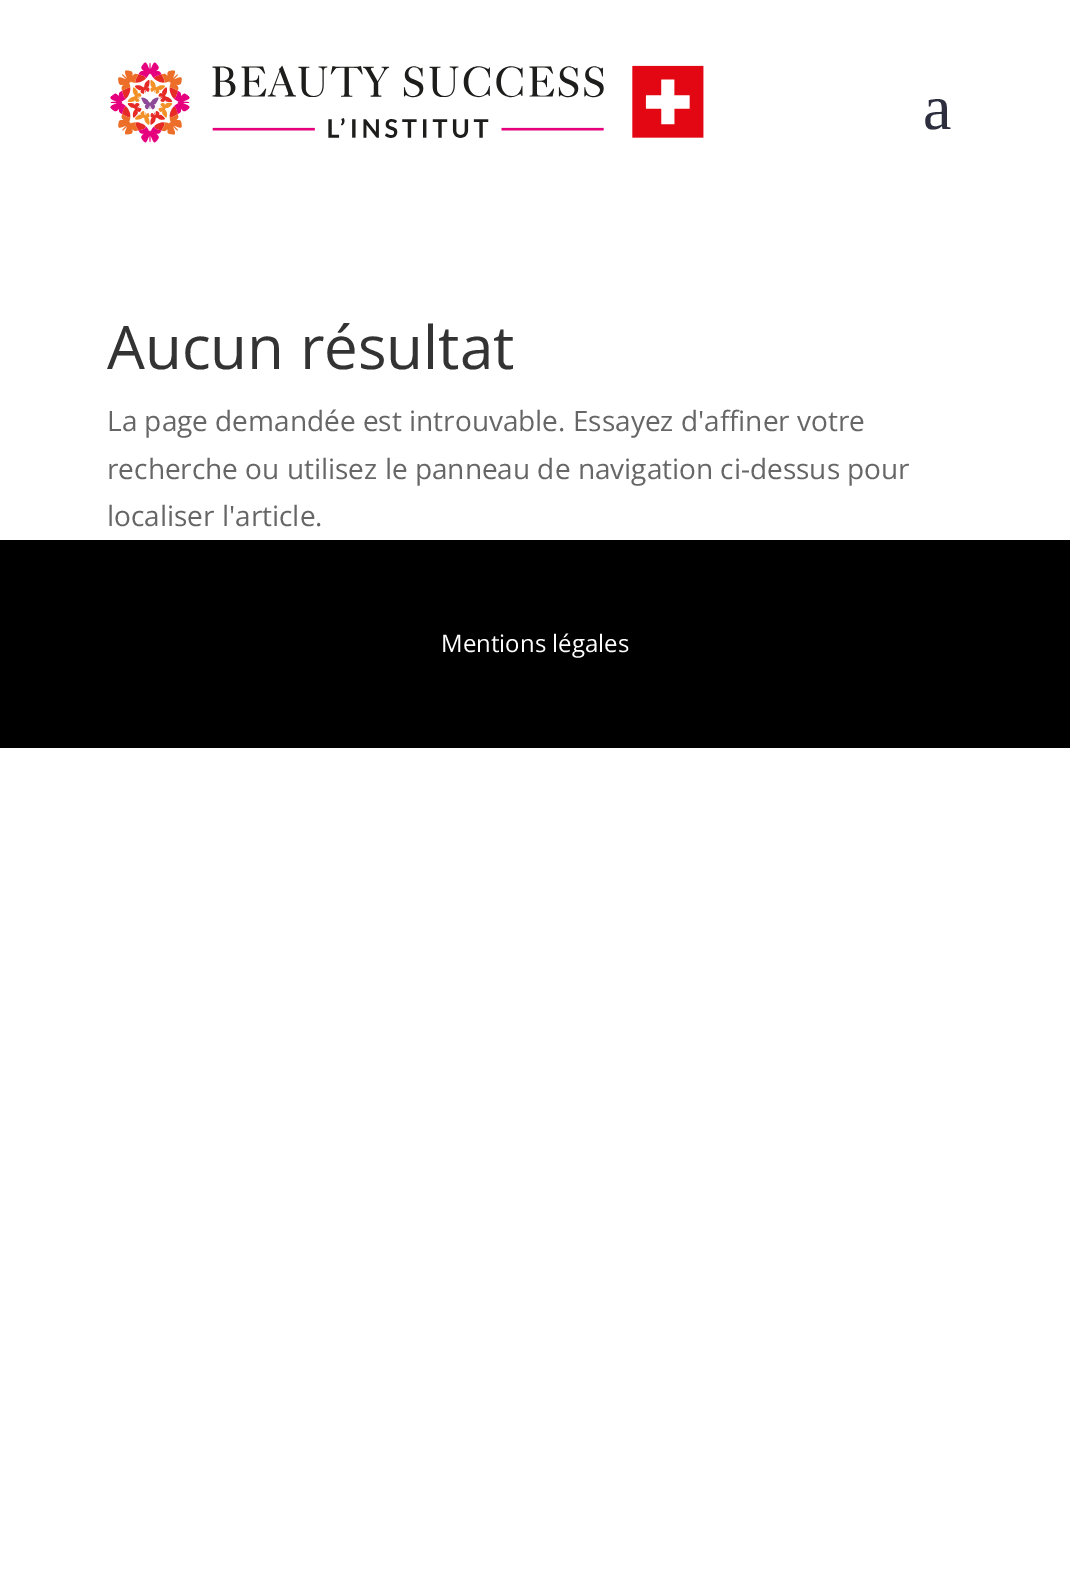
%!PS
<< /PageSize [1070 1593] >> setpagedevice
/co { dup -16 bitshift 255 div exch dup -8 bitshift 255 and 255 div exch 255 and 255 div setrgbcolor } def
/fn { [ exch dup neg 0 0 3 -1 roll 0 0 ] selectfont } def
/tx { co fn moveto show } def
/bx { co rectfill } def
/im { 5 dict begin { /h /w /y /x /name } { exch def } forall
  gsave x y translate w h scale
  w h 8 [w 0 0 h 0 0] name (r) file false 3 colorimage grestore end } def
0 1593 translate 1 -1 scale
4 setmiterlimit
0 0 1070 1593 16#FFFFFF bx
(media/1.raw) 110 62 594 81 im
0 540 1070 208 16#000000 bx
(a) 923 129 /LiberationSerif-Regular 64 16#2C2E3E tx
(Aucun résultat) 107 369 /OpenSans-Regular 60 16#333333 tx
(La page demandée est introuvable. Essayez d'affiner votre) 107 431 /OpenSans-Regular 28 16#666666 tx
(recherche ou utilisez le panneau de navigation ci-dessus pour) 107 479 /OpenSans-Regular 28 16#666666 tx
(localiser l'article.) 107 526 /OpenSans-Regular 28 16#666666 tx
(Mentions légales) 441 652 /OpenSans-Regular 24 16#FFFFFF tx
showpage
